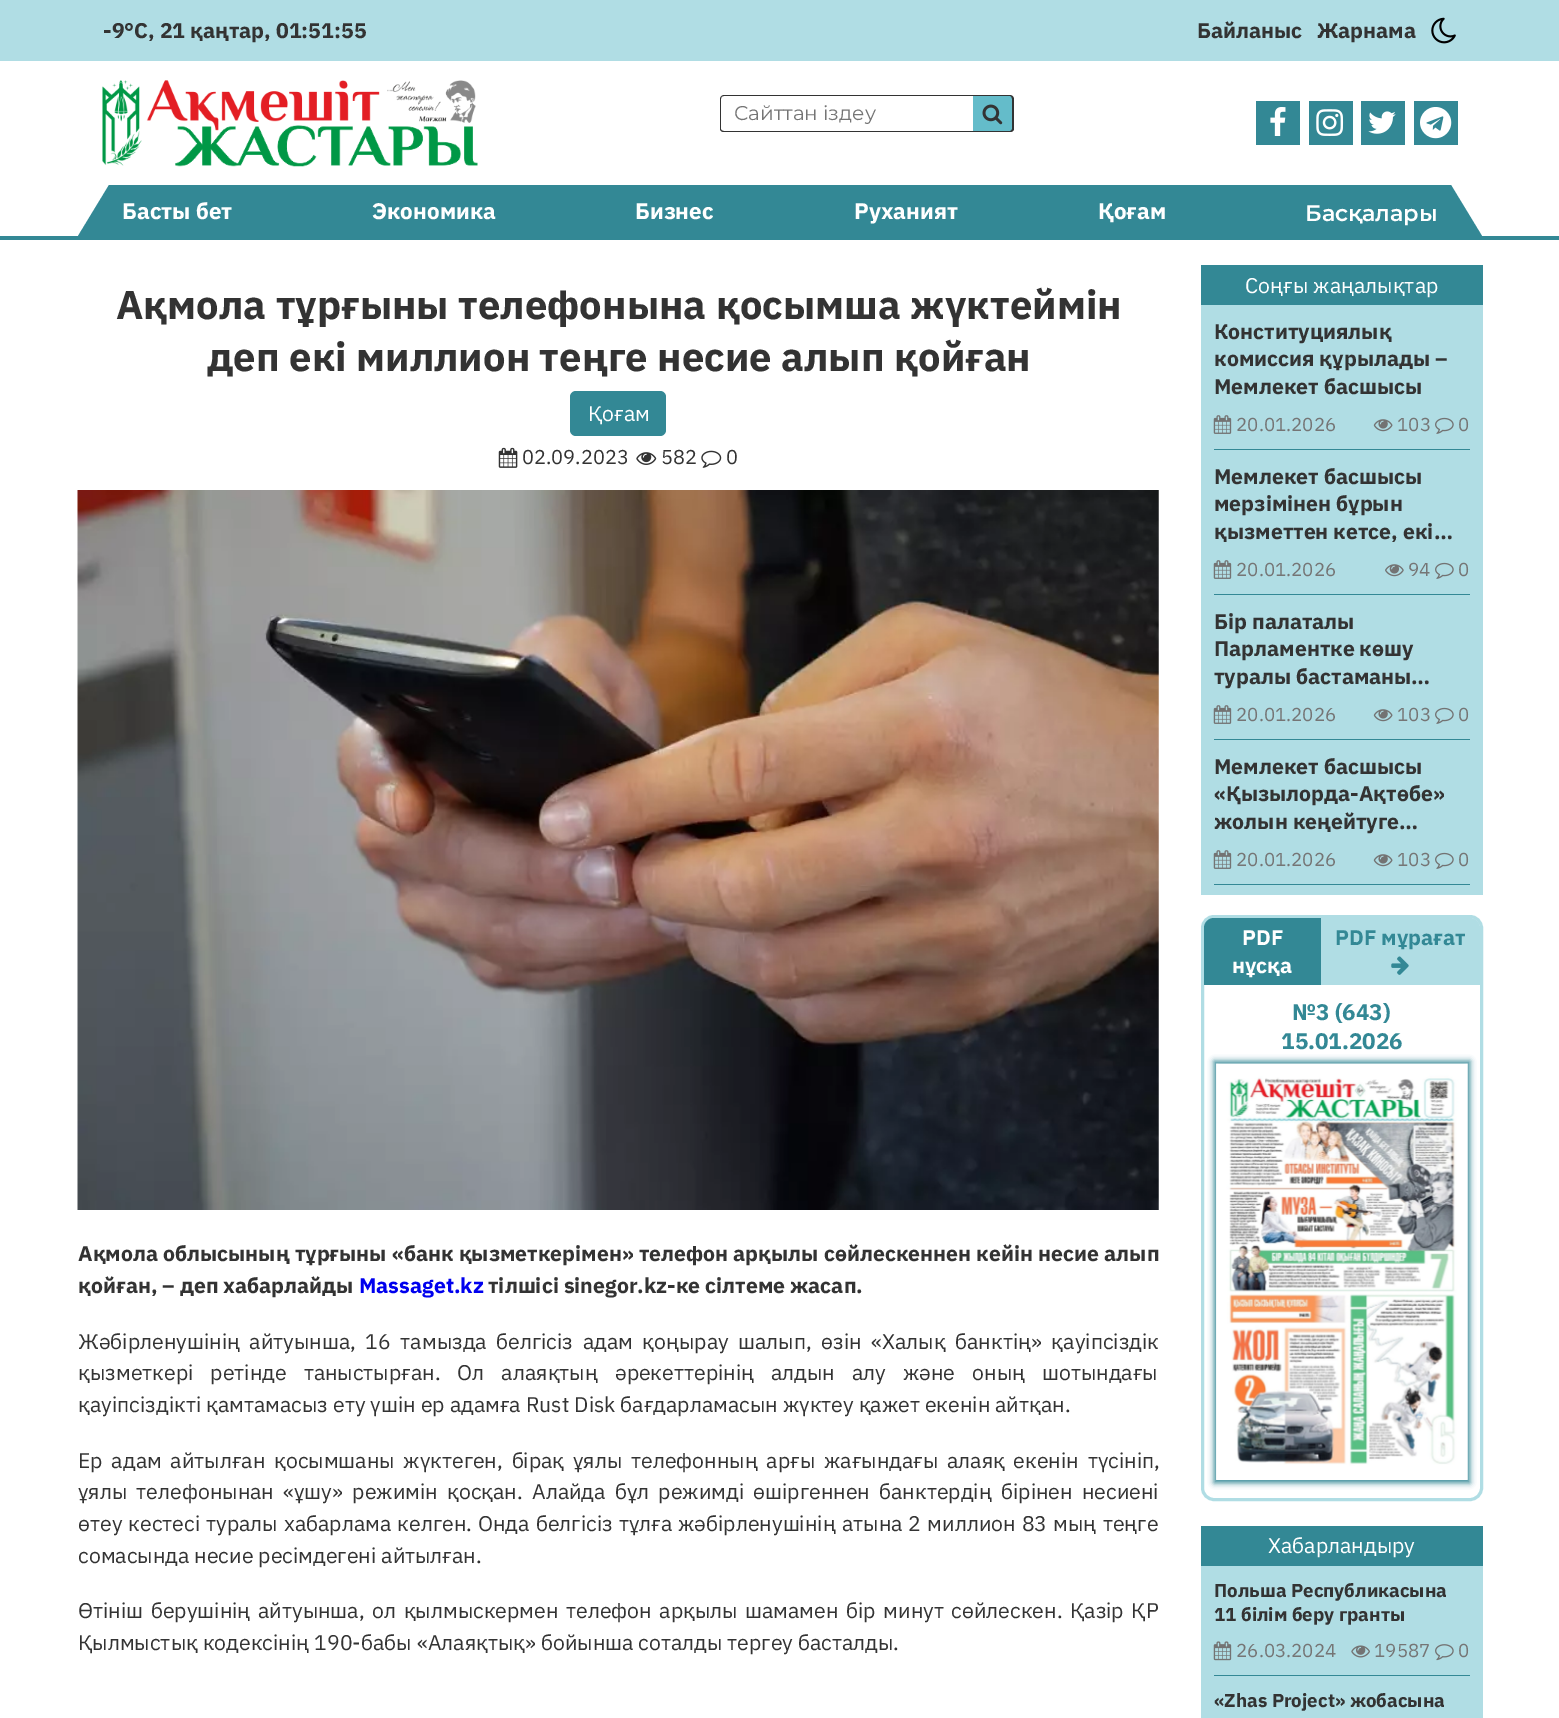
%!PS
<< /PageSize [1559 1718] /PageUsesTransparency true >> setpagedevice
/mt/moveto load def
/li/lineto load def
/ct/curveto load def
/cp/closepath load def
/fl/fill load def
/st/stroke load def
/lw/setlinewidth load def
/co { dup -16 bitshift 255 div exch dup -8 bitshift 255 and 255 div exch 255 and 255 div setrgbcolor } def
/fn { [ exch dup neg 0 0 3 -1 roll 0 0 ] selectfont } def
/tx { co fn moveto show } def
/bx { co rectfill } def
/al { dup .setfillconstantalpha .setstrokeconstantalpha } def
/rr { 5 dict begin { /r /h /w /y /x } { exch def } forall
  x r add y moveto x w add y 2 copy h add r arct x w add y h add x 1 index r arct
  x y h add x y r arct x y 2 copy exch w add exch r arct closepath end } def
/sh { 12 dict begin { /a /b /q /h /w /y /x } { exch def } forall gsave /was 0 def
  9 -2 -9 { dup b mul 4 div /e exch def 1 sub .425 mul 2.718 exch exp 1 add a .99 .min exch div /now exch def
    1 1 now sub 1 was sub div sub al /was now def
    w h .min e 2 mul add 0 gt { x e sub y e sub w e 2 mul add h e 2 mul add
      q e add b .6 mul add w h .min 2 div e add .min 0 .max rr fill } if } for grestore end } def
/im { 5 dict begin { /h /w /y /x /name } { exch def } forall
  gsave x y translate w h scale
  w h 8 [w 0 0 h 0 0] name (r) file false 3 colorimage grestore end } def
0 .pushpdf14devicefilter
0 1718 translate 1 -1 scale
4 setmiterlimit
0 0 1559 1718 16#FFFFFF bx
0 0 1559 61 16#B0DDE4 bx
(media/1.raw) 1431 17 25 27 im
(media/2.raw) 102 80 376 87 im
16#333333 co
724 95 mt 972 95 li 972 132 li 724 132 li 722 132 720 131 720 129 ct 720 99 li 720 97 722 95 724 95 ct cp 724 96 mt 972 96 li 972 131 li 724 131 li 722 131 721 130 721 129 ct 721 99 li 721 97 722 96 724 96 ct cp eofill
16#64BCCA co
973 96 mt 1010.5 96 li 1012 96 1013 97 1013 98.5 ct 1013 128.5 li 1013 130 1012 131 1010.5 131 ct 973 131 li cp fl
16#333333 co
972 95 mt 1010 95 li 1012 95 1014 97 1014 99 ct 1014 129 li 1014 131 1012 132 1010 132 ct 972 132 li cp 972 96 mt 1010 96 li 1011 96 1012 97 1012 99 ct 1012 129 li 1012 130 1011 131 1010 131 ct 972 131 li cp eofill
(media/3.raw) 982 104 21 21 im
1256 101 44 44 16#338895 bx
(media/4.raw) 1270 107 16 29 im
1309 101 44 44 16#338895 bx
(media/5.raw) 1316 109 28 27 im
1361 101 44 44 16#338895 bx
(media/6.raw) 1368 111 28 23 im
1414 101 44 44 16#338895 bx
(media/7.raw) 1420 107 32 32 im
0 236 1559 4 16#338895 bx
109 185 mt 1451 185 li 1482 236 li 78 236 li cp fl
570 391 96 45 6 rr fl
(media/8.raw) 498 447 20 21 im
(media/9.raw) 636 452 21 13 im
(media/10.raw) 701 450 21 18 im
(media/11.raw) 77 490 1082 720 im
1201 265 282 40 16#338895 bx
1201 305 282 590 16#B0DDE4 bx
(media/12.raw) 1213 415 19 19 im
(media/13.raw) 1373 419 20 13 im
(media/14.raw) 1435 417 19 17 im
1214 449 256 1 16#338895 bx
(media/12.raw) 1213 560 19 19 im
(media/15.raw) 1385 564 19 13 im
(media/14.raw) 1435 562 19 17 im
1214 594 256 1 16#338895 bx
(media/12.raw) 1213 705 19 19 im
(media/13.raw) 1373 709 20 13 im
(media/14.raw) 1435 707 19 17 im
1214 739 256 1 16#338895 bx
(media/12.raw) 1213 850 19 19 im
(media/13.raw) 1373 854 20 13 im
(media/14.raw) 1435 852 19 17 im
1214 884 256 1 16#338895 bx
16#B0DDE4 co
3 lw
1202.5 916.5 279 583 11.5 rr st
16#338895 co
1214 918 mt 1321 918 li 1321 985 li 1204 985 li 1204 928 li 1204 922.5 1208.5 918 1214 918 ct cp fl
16#B0DDE4 co
1321 918 mt 1470 918 li 1475.5 918 1480 922.5 1480 928 ct 1480 985 li 1321 985 li cp fl
(media/16.raw) 1391 956 18 19 im
16#338895 co
1214 1061 256 422 0 3 1 sh
(media/17.raw) 1216 1063 252 417 im
1201 1526 282 40 16#338895 bx
1201 1566 282 152 16#B0DDE4 bx
(media/18.raw) 1213 1641 19 20 im
(media/19.raw) 1351 1645 19 13 im
(media/20.raw) 1435 1644 19 17 im
1214 1675 256 1 16#338895 bx
(-9°C, 21 қаңтар, 01:51:55) 103 38 /IBMPlexSans-Bold 21.25 16#333333 tx
(Байланыс) 1197 38 /IBMPlexSans-Bold 21.25 16#333333 tx
(Жарнама) 1317 38 /IBMPlexSans-Bold 21.25 16#333333 tx
(Сайттан іздеу) 734 120 /Montserrat-Regular 20 16#757575 tx
(Басты бет) 122 219 /IBMPlexSans-Bold 22.5 16#FFFFFF tx
(Экономика) 372 219 /IBMPlexSans-Bold 22.5 16#FFFFFF tx
(Бизнес) 635 219 /IBMPlexSans-Bold 22.5 16#FFFFFF tx
(Руханият) 854 219 /IBMPlexSans-Bold 22.5 16#FFFFFF tx
(Қоғам) 1098 219 /IBMPlexSans-Bold 22.5 16#FFFFFF tx
(Басқалары) 1305 221 /Montserrat-SemiBold 22.5 16#FFFFFF tx
(Ақмола тұрғыны телефонына қосымша жүктеймін) 116 319 /IBMPlexSans-Bold 40 16#333333 tx
(деп екі миллион теңге несие алып қойған) 207 371 /IBMPlexSans-Bold 40 16#333333 tx
(Қоғам) 588 421 /IBMPlexSans-Regular 21.25 16#FFFFFF tx
(02.09.2023) 522 464 /IBMPlexSans-Regular 20 16#333333 tx
(582) 661 464 /IBMPlexSans-Regular 20 16#333333 tx
(0) 726 464 /IBMPlexSans-Regular 20 16#333333 tx
/IBMPlexSans-Bold 21.25 fn
78 1261 mt .25 0 32 (Ақмола облысының тұрғыны «банк қызметкерімен» телефон арқылы сөйлескеннен кейін несие алып) widthshow
(қойған, – деп хабарлайды) 78 1293 /IBMPlexSans-Bold 21.25 16#333333 tx
(Massaget.kz) 359 1293 /IBMPlexSans-Bold 21.25 16#0000EE tx
(тілшісі sinegor.kz-ке сілтеме жасап.) 488 1293 /IBMPlexSans-Bold 21.25 16#333333 tx
/IBMPlexSans-Regular 21.25 fn
78 1349 mt 4.5 0 32 (Жәбірленушінің айтуынша, 16 тамызда белгісіз адам қоңырау шалып, өзін «Халық банктің» қауіпсіздік) widthshow
78 1380 mt 12 0 32 (қызметкері ретінде таныстырған. Ол алаяқтың әрекеттерінің алдын алу және оның шотындағы) widthshow
(қауіпсіздікті қамтамасыз ету үшін ер адамға Rust Disk бағдарламасын жүктеу қажет екенін айтқан.) 78 1412 /IBMPlexSans-Regular 21.25 16#333333 tx
78 1468 mt 3.75 0 32 (Ер адам айтылған қосымшаны жүктеген, бірақ ұялы телефонның арғы жағындағы алаяқ екенін түсініп,) widthshow
78 1499 mt 4.25 0 32 (ұялы телефонынан «ұшу» режимін қосқан. Алайда бұл режимді өшіргеннен банктердің бірінен несиені) widthshow
78 1531 mt 1.1 0 32 (өтеу кестесі туралы хабарлама келген. Онда белгісіз тұлға жәбірленушінің атына 2 миллион 83 мың теңге) widthshow
(сомасында несие ресімдегені айтылған.) 78 1563 /IBMPlexSans-Regular 21.25 16#333333 tx
78 1618 mt 2.6 0 32 (Өтініш берушінің айтуынша, ол қылмыскермен телефон арқылы шамамен бір минут сөйлескен. Қазір ҚР) widthshow
(Қылмыстық кодексінің 190-бабы «Алаяқтық» бойынша соталды тергеу басталды.) 78 1650 /IBMPlexSans-Regular 21.25 16#333333 tx
(Соңғы жаңалықтар) 1245 293 /IBMPlexSans-Regular 21.25 16#FFFFFF tx
(Конституциялық) 1214 339 /IBMPlexSans-Bold 21.25 16#333333 tx
(комиссия құрылады –) 1214 366 /IBMPlexSans-Bold 21.25 16#333333 tx
(Мемлекет басшысы) 1214 394 /IBMPlexSans-Bold 21.25 16#333333 tx
(20.01.2026) 1236 431 /IBMPlexSans-Regular 18.75 16#757575 tx
(103) 1397 431 /IBMPlexSans-Regular 18.75 16#757575 tx
(0) 1458 431 /IBMPlexSans-Regular 18.75 16#757575 tx
(Мемлекет басшысы) 1214 484 /IBMPlexSans-Bold 21.25 16#333333 tx
(мерзімінен бұрын) 1214 511 /IBMPlexSans-Bold 21.25 16#333333 tx
(қызметтен кетсе, екі…) 1214 539 /IBMPlexSans-Bold 21.25 16#333333 tx
(20.01.2026) 1236 576 /IBMPlexSans-Regular 18.75 16#757575 tx
(94) 1408 576 /IBMPlexSans-Regular 18.75 16#757575 tx
(0) 1458 576 /IBMPlexSans-Regular 18.75 16#757575 tx
(Бір палаталы) 1214 629 /IBMPlexSans-Bold 21.25 16#333333 tx
(Парламентке көшу) 1214 656 /IBMPlexSans-Bold 21.25 16#333333 tx
(туралы бастаманы…) 1214 684 /IBMPlexSans-Bold 21.25 16#333333 tx
(20.01.2026) 1236 721 /IBMPlexSans-Regular 18.75 16#757575 tx
(103) 1397 721 /IBMPlexSans-Regular 18.75 16#757575 tx
(0) 1458 721 /IBMPlexSans-Regular 18.75 16#757575 tx
(Мемлекет басшысы) 1214 774 /IBMPlexSans-Bold 21.25 16#333333 tx
(«Қызылорда-Ақтөбе») 1214 801 /IBMPlexSans-Bold 21.25 16#333333 tx
(жолын кеңейтуге…) 1214 829 /IBMPlexSans-Bold 21.25 16#333333 tx
(20.01.2026) 1236 866 /IBMPlexSans-Regular 18.75 16#757575 tx
(103) 1397 866 /IBMPlexSans-Regular 18.75 16#757575 tx
(0) 1458 866 /IBMPlexSans-Regular 18.75 16#757575 tx
(PDF) 1242 945 /IBMPlexSans-Bold 21.25 16#FFFFFF tx
(нұсқа) 1232 973 /IBMPlexSans-Bold 21.25 16#FFFFFF tx
(PDF мұрағат) 1335 945 /IBMPlexSans-Bold 21.25 16#338895 tx
(№3 \(643\)) 1292 1020 /IBMPlexSans-Bold 22.5 16#338895 tx
(15.01.2026) 1281 1049 /IBMPlexSans-Bold 22.5 16#338895 tx
(Хабарландыру) 1268 1553 /IBMPlexSans-Regular 21.25 16#FFFFFF tx
(Польша Республикасына) 1214 1597 /IBMPlexSans-Bold 18.75 16#333333 tx
(11 білім беру гранты) 1214 1621 /IBMPlexSans-Bold 18.75 16#333333 tx
(26.03.2024) 1236 1657 /IBMPlexSans-Regular 18.75 16#757575 tx
(19587) 1374 1657 /IBMPlexSans-Regular 18.75 16#757575 tx
(0) 1458 1657 /IBMPlexSans-Regular 18.75 16#757575 tx
(«Zhas Project» жобасына) 1214 1707 /IBMPlexSans-Bold 18.75 16#333333 tx
.poppdf14devicefilter showpage
